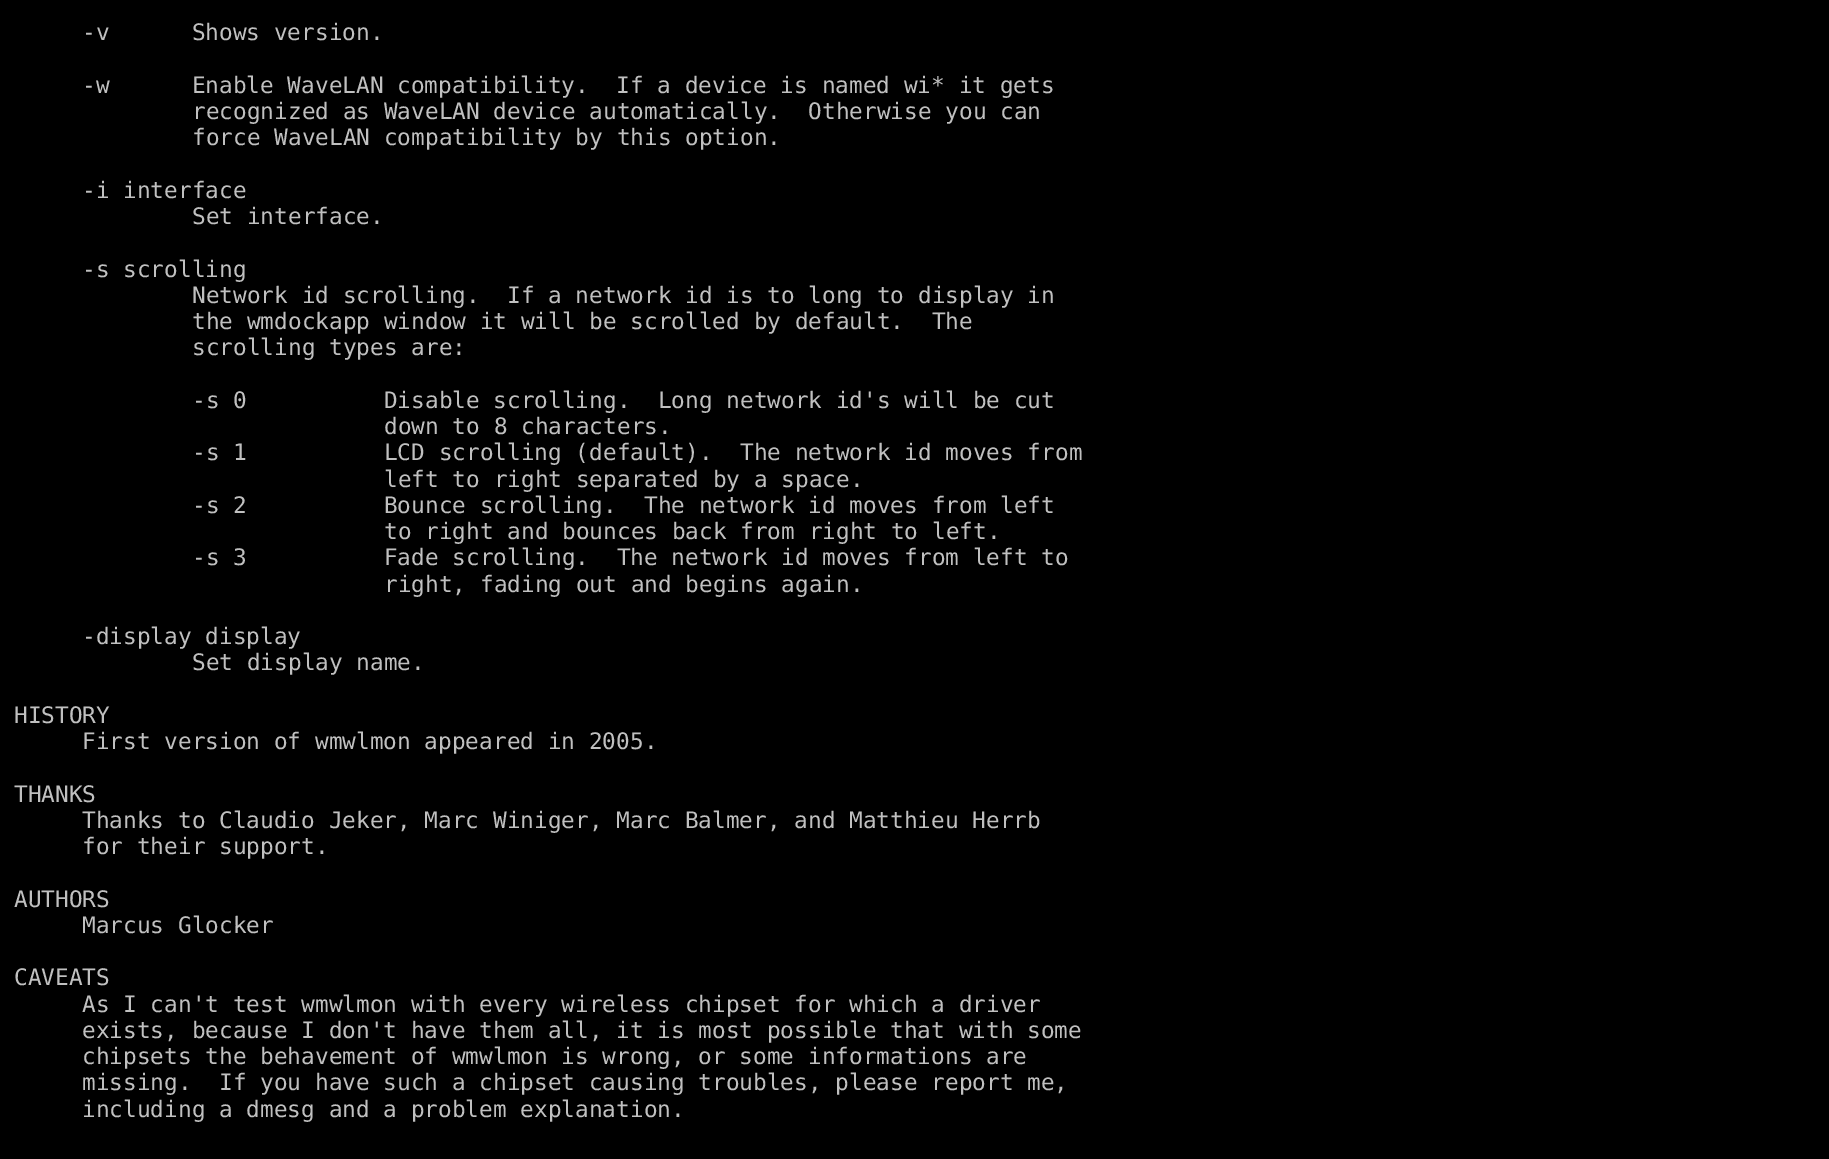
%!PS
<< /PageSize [1829 1159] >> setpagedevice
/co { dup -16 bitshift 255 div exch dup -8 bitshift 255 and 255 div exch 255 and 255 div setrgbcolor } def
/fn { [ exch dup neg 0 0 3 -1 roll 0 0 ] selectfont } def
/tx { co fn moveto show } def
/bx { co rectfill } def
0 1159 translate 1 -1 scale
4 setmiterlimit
0 0 1829 1159 16#000000 bx
(-v      Shows version.) 82 40 /DejaVuSansMono-Regular 22.75 16#C0C0C0 tx
(-w      Enable WaveLAN compatibility.  If a device is named wi* it gets) 82 93 /DejaVuSansMono-Regular 22.75 16#C0C0C0 tx
(recognized as WaveLAN device automatically.  Otherwise you can) 192 119 /DejaVuSansMono-Regular 22.75 16#C0C0C0 tx
(force WaveLAN compatibility by this option.) 192 145 /DejaVuSansMono-Regular 22.75 16#C0C0C0 tx
(-i interface) 82 198 /DejaVuSansMono-Regular 22.75 16#C0C0C0 tx
(Set interface.) 192 224 /DejaVuSansMono-Regular 22.75 16#C0C0C0 tx
(-s scrolling) 82 277 /DejaVuSansMono-Regular 22.75 16#C0C0C0 tx
(Network id scrolling.  If a network id is to long to display in) 192 303 /DejaVuSansMono-Regular 22.75 16#C0C0C0 tx
(the wmdockapp window it will be scrolled by default.  The) 192 329 /DejaVuSansMono-Regular 22.75 16#C0C0C0 tx
(scrolling types are:) 192 355 /DejaVuSansMono-Regular 22.75 16#C0C0C0 tx
(-s 0          Disable scrolling.  Long network id's will be cut) 192 408 /DejaVuSansMono-Regular 22.75 16#C0C0C0 tx
(down to 8 characters.) 384 434 /DejaVuSansMono-Regular 22.75 16#C0C0C0 tx
(-s 1          LCD scrolling \(default\).  The network id moves from) 192 460 /DejaVuSansMono-Regular 22.75 16#C0C0C0 tx
(left to right separated by a space.) 384 487 /DejaVuSansMono-Regular 22.75 16#C0C0C0 tx
(-s 2          Bounce scrolling.  The network id moves from left) 192 513 /DejaVuSansMono-Regular 22.75 16#C0C0C0 tx
(to right and bounces back from right to left.) 384 539 /DejaVuSansMono-Regular 22.75 16#C0C0C0 tx
(-s 3          Fade scrolling.  The network id moves from left to) 192 565 /DejaVuSansMono-Regular 22.75 16#C0C0C0 tx
(right, fading out and begins again.) 384 592 /DejaVuSansMono-Regular 22.75 16#C0C0C0 tx
(-display display) 82 644 /DejaVuSansMono-Regular 22.75 16#C0C0C0 tx
(Set display name.) 192 670 /DejaVuSansMono-Regular 22.75 16#C0C0C0 tx
(HISTORY) 14 723 /DejaVuSansMono-Regular 22.75 16#C0C0C0 tx
(First version of wmwlmon appeared in 2005.) 82 749 /DejaVuSansMono-Regular 22.75 16#C0C0C0 tx
(THANKS) 14 802 /DejaVuSansMono-Regular 22.75 16#C0C0C0 tx
(Thanks to Claudio Jeker, Marc Winiger, Marc Balmer, and Matthieu Herrb) 82 828 /DejaVuSansMono-Regular 22.75 16#C0C0C0 tx
(for their support.) 82 854 /DejaVuSansMono-Regular 22.75 16#C0C0C0 tx
(AUTHORS) 14 907 /DejaVuSansMono-Regular 22.75 16#C0C0C0 tx
(Marcus Glocker) 82 933 /DejaVuSansMono-Regular 22.75 16#C0C0C0 tx
(CAVEATS) 14 985 /DejaVuSansMono-Regular 22.75 16#C0C0C0 tx
(As I can't test wmwlmon with every wireless chipset for which a driver) 82 1012 /DejaVuSansMono-Regular 22.75 16#C0C0C0 tx
(exists, because I don't have them all, it is most possible that with some) 82 1038 /DejaVuSansMono-Regular 22.75 16#C0C0C0 tx
(chipsets the behavement of wmwlmon is wrong, or some informations are) 82 1064 /DejaVuSansMono-Regular 22.75 16#C0C0C0 tx
(missing.  If you have such a chipset causing troubles, please report me,) 82 1090 /DejaVuSansMono-Regular 22.75 16#C0C0C0 tx
(including a dmesg and a problem explanation.) 82 1117 /DejaVuSansMono-Regular 22.75 16#C0C0C0 tx
showpage
